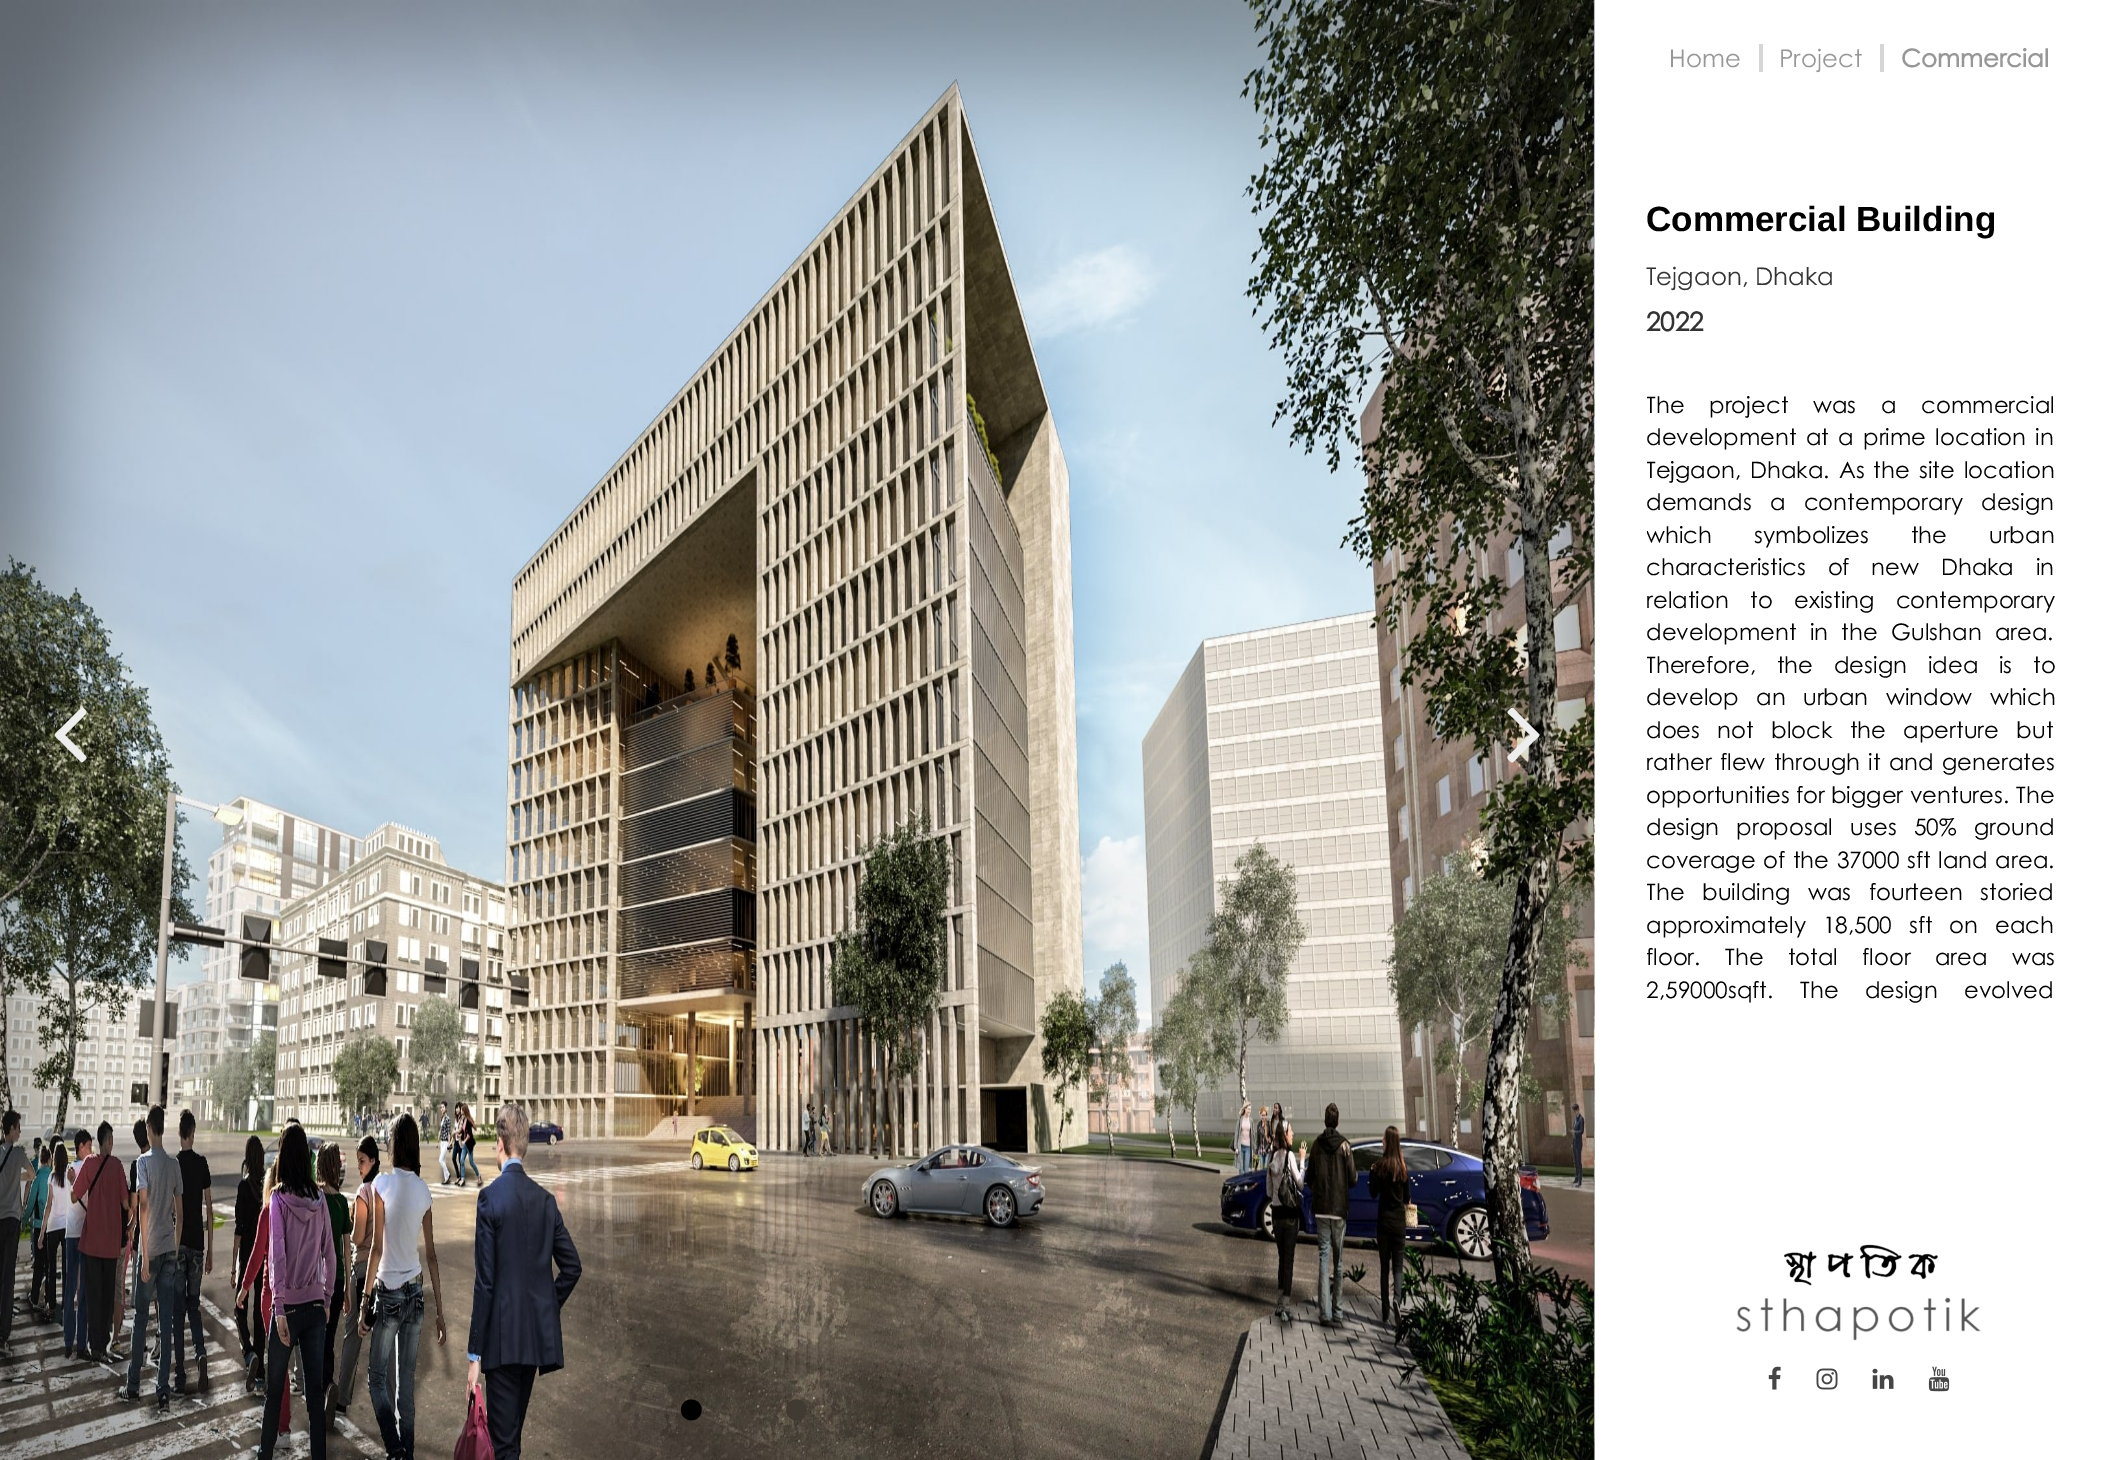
%!PS
<< /PageSize [2123 1460] >> setpagedevice
/mt/moveto load def
/li/lineto load def
/ct/curveto load def
/cp/closepath load def
/fl/fill load def
/gs/gsave load def
/gr/grestore load def
/co { dup -16 bitshift 255 div exch dup -8 bitshift 255 and 255 div exch 255 and 255 div setrgbcolor } def
/fn { [ exch dup neg 0 0 3 -1 roll 0 0 ] selectfont } def
/tx { co fn moveto show } def
/bx { co rectfill } def
/im { 5 dict begin { /h /w /y /x /name } { exch def } forall
  gsave x y translate w h scale
  w h 8 [w 0 0 h 0 0] name (r) file false 3 colorimage grestore end } def
0 1460 translate 1 -1 scale
4 setmiterlimit
0 0 2123 1460 16#FFFFFF bx
1759 44 4 28 16#D7D6D6 bx
1880 44 4 28 16#D7D6D6 bx
(media/1.raw) 1736 1244 245 97 im
(media/2.raw) 1768 1366 13 24 im
(media/3.raw) 1816 1368 22 22 im
(media/4.raw) 1872 1368 22 21 im
(media/5.raw) 1928 1366 22 26 im
(media/6.raw) 0 0 1594 1460 im
(media/7.raw) 1593 0 2 1460 im
16#EDEDED co
86 711 mt 88 713 83 716 83 717 ct 65 735 li 83 753 li 86 757 88 757 85 760 ct 84 761 82 763 81 762 ct 60 741 li 53 734 53 736 60 729 ct 81 708 li 83 706 85 710 86 711 ct cp fl
1539 734 mt 1541 736 1535 740 1534 741 ct 1518 757 li 1517 758 1513 764 1511 762 ct 1510 761 1506 758 1508 756 ct 1530 735 li 1512 717 li 1508 713 1506 713 1509 710 ct 1513 706 1513 708 1518 713 ct cp fl
(Home) 1669 67 /CenturyGothic-Regular 24.5 16#979797 tx
(Project) 1779 67 /CenturyGothic-Regular 24.5 16#979797 tx
(Commercial) 1901 67 /CenturyGothic-Bold 24.5 16#979797 tx
(Commercial Building) 1646 231 /LiberationSans-Bold 35 16#000000 tx
(Tejgaon, Dhaka) 1646 285 /CenturyGothic-Regular 24.5 16#333333 tx
(2022) 1646 331 /CenturyGothic-Bold 26 16#333333 tx
gs
1647 389 425 623 rectclip
/CenturyGothic-Regular 22.75 fn
16#000000 co
1646 413 mt 18.5 0 32 (The project was a commercial) widthshow
gr
/CenturyGothic-Regular 22.75 fn
16#000000 co
1646 445 mt 3 0 32 (development at a prime location in) widthshow
gs
1647 389 425 623 rectclip
1646 478 mt 2.75 0 32 (Tejgaon, Dhaka. As the site location) widthshow
gr
1646 510 mt 12 0 32 (demands a contemporary design) widthshow
gs
1647 389 425 623 rectclip
1646 543 mt 35.5 0 32 (which symbolizes the urban) widthshow
gr
1646 575 mt 15.5 0 32 (characteristics of new Dhaka in) widthshow
1646 608 mt 15 0 32 (relation to existing contemporary) widthshow
1646 640 mt 7 0 32 (development in the Gulshan area.) widthshow
gs
1647 389 425 623 rectclip
1646 673 mt 14.5 0 32 (Therefore, the design idea is to) widthshow
gr
1646 705 mt 11 0 32 (develop an urban window which) widthshow
1646 738 mt 11 0 32 (does not block the aperture but) widthshow
1646 770 mt 2 0 32 (rather flew through it and generates) widthshow
(opportunities for bigger ventures.) 1646 803 /CenturyGothic-Regular 22.75 16#000000 tx
(The) 2016 803 /CenturyGothic-Regular 22.75 16#000000 tx
1646 835 mt 11 0 32 (design proposal uses 50% ground) widthshow
1646 868 mt 1.25 0 32 (coverage of the 37000 sft land area.) widthshow
gs
1647 389 425 623 rectclip
1646 900 mt 11.5 0 32 (The building was fourteen storied) widthshow
gr
1646 933 mt 10.5 0 32 (approximately 18,500 sft on each) widthshow
(floor.) 1646 965 /CenturyGothic-Regular 22.75 16#000000 tx
1725 965 mt 18 0 32 (The total floor area was) widthshow
(2,59000sqft.) 1646 998 /CenturyGothic-Regular 22.75 16#000000 tx
1800 998 mt 20 0 32 (The design evolved) widthshow
(•) 676 1439 /LiberationSerif-Regular 88 16#000000 tx
(•) 781 1439 /LiberationSerif-Regular 88 16#413A32 tx
showpage
